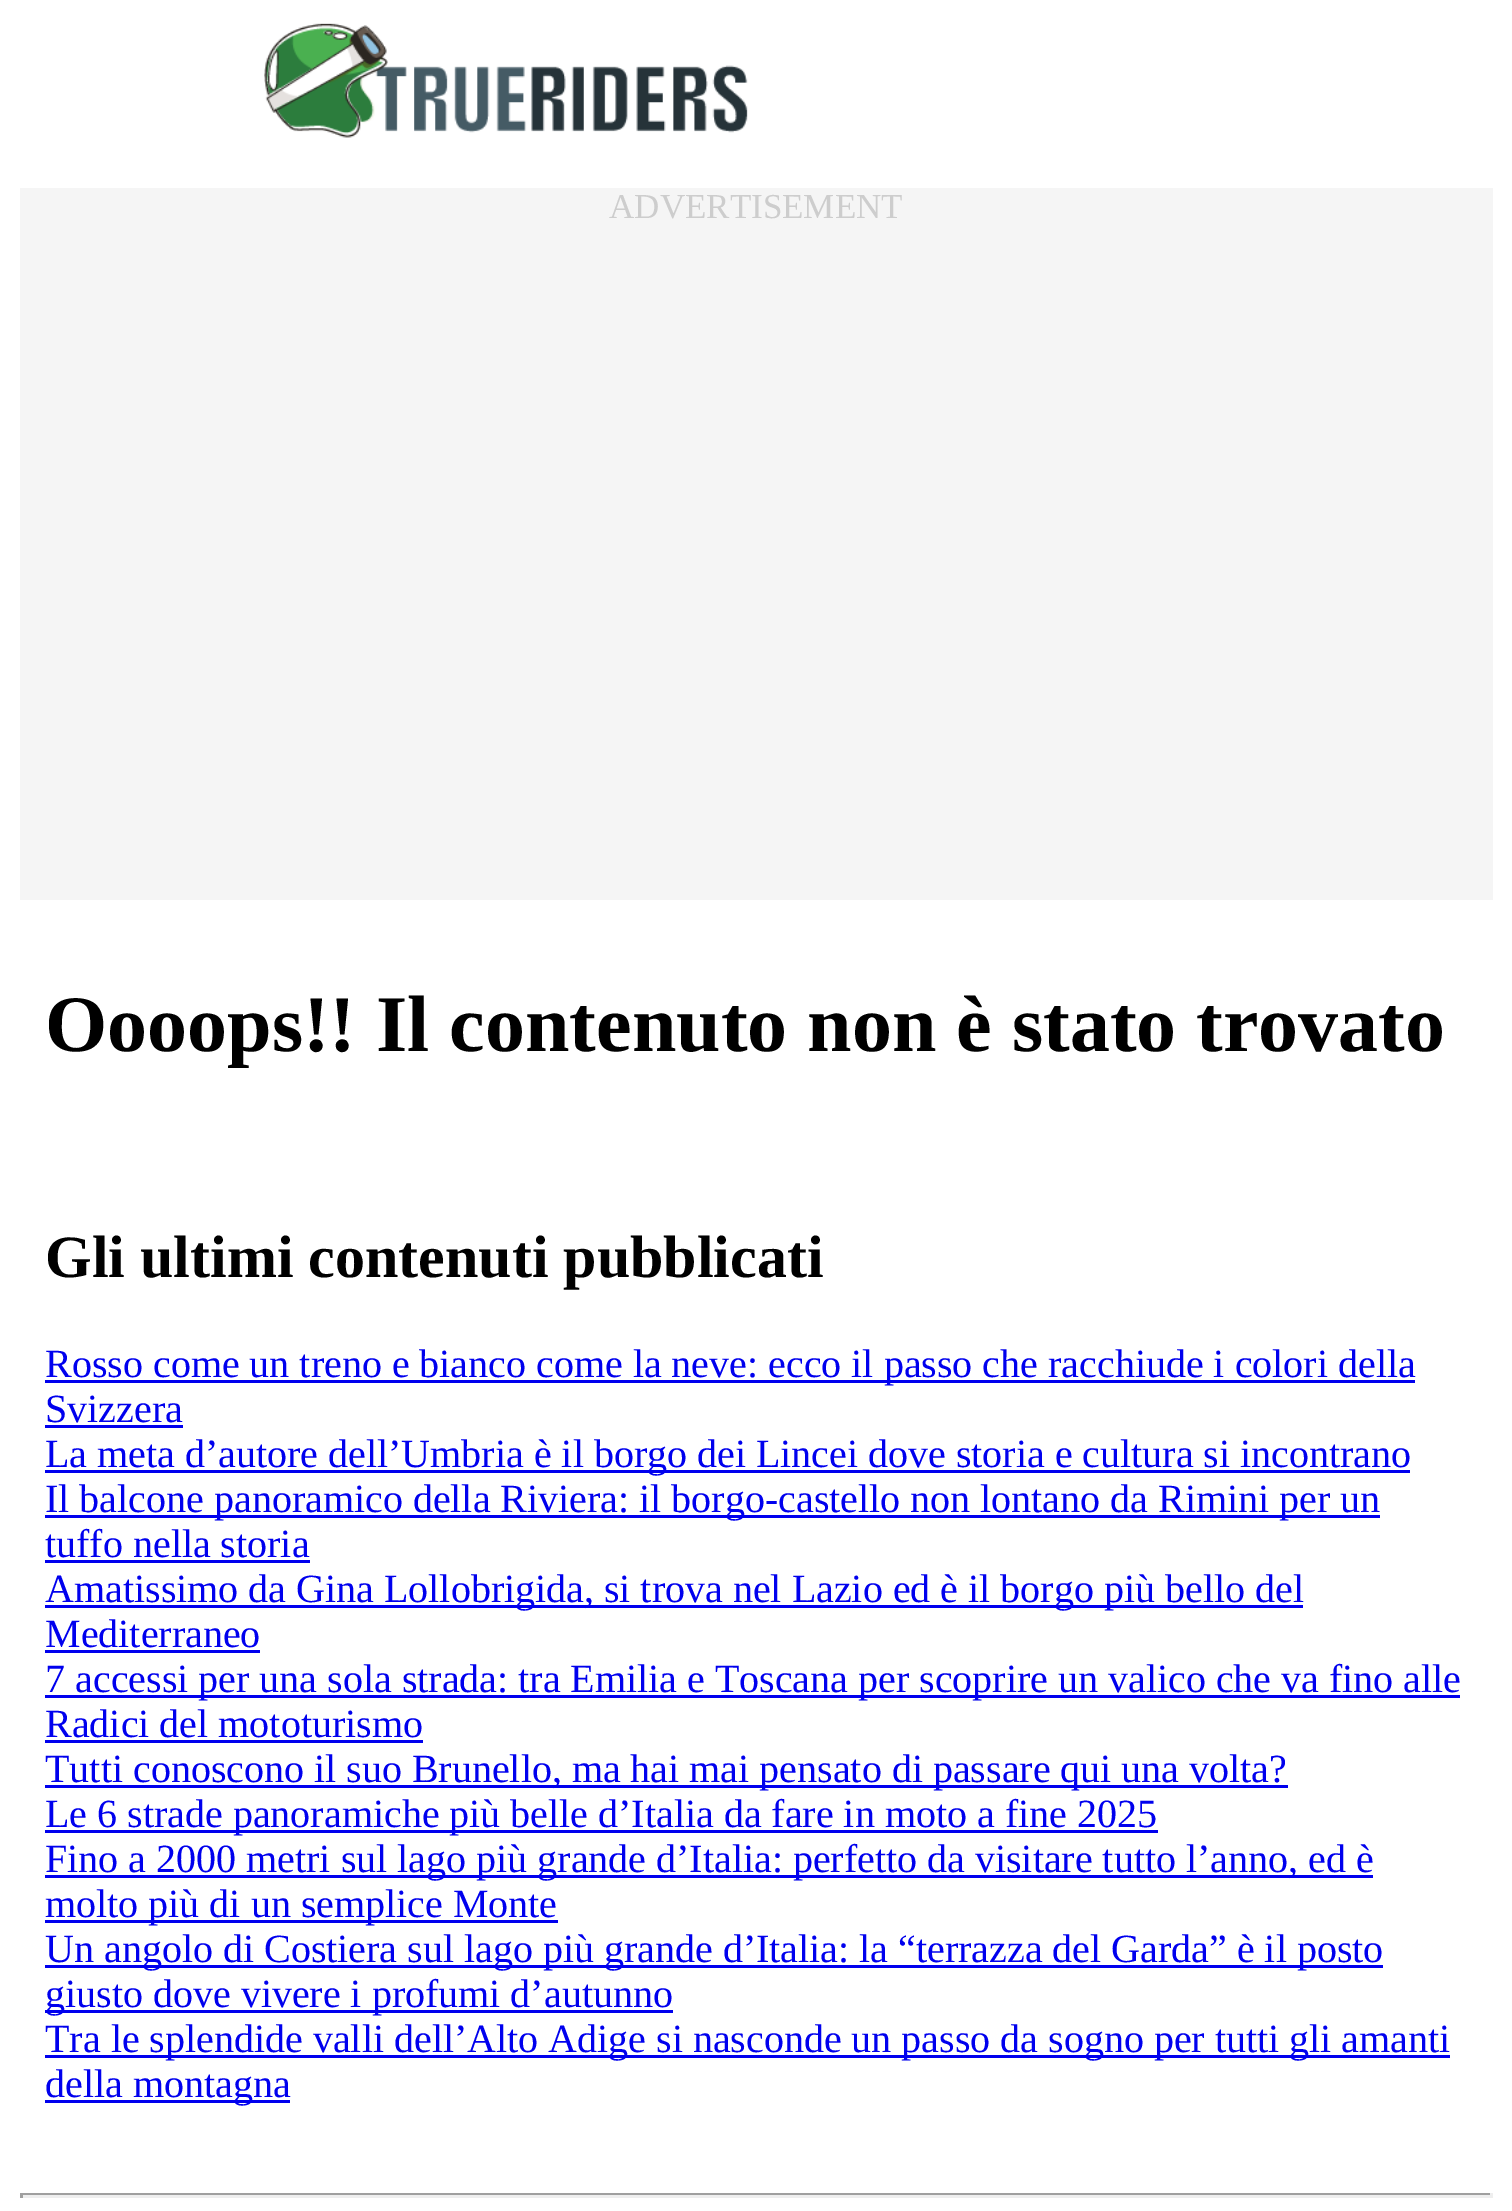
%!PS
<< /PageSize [1512 2211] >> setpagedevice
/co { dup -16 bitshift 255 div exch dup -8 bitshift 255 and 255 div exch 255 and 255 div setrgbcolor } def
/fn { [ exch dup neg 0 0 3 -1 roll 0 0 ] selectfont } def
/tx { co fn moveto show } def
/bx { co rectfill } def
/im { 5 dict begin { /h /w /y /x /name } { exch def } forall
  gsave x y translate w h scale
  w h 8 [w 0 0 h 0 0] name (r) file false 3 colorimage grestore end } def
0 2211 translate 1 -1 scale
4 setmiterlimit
0 0 1512 2211 16#FFFFFF bx
(media/1.raw) 264 23 484 115 im
20 188 1473 712 16#F5F5F5 bx
45 1380 1370 3 16#0000EE bx
45 1425 138 3 16#0000EE bx
45 1470 1365 3 16#0000EE bx
45 1515 1335 3 16#0000EE bx
45 1560 265 3 16#0000EE bx
45 1605 1258 3 16#0000EE bx
45 1650 215 3 16#0000EE bx
45 1695 1415 3 16#0000EE bx
45 1740 378 3 16#0000EE bx
45 1785 1243 3 16#0000EE bx
45 1830 1113 3 16#0000EE bx
45 1875 1328 3 16#0000EE bx
45 1920 513 3 16#0000EE bx
45 1965 1338 3 16#0000EE bx
45 2010 628 3 16#0000EE bx
45 2055 1405 3 16#0000EE bx
45 2100 245 3 16#0000EE bx
20 2193 1473 2 16#9F9F9F bx
1490 2193 3 5 16#EEEEEE bx
20 2195 1473 3 16#EEEEEE bx
20 2193 3 5 16#9F9F9F bx
(ADVERTISEMENT) 609 218 /LiberationSerif-Regular 35 16#CDCDCD tx
(Oooops!! Il contenuto non è stato trovato) 45 1051 /LiberationSerif-Bold 80 16#000000 tx
(Gli ultimi contenuti pubblicati) 45 1277 /LiberationSerif-Bold 60 16#000000 tx
(Rosso come un treno e bianco come la neve: ecco il passo che racchiude i colori della) 45 1377 /LiberationSerif-Regular 40 16#0000EE tx
(Svizzera) 45 1422 /LiberationSerif-Regular 40 16#0000EE tx
(La meta d’autore dell’Umbria è il borgo dei Lincei dove storia e cultura si incontrano) 45 1467 /LiberationSerif-Regular 40 16#0000EE tx
(Il balcone panoramico della Riviera: il borgo-castello non lontano da Rimini per un) 45 1512 /LiberationSerif-Regular 40 16#0000EE tx
(tuffo nella storia) 45 1557 /LiberationSerif-Regular 40 16#0000EE tx
(Amatissimo da Gina Lollobrigida, si trova nel Lazio ed è il borgo più bello del) 45 1602 /LiberationSerif-Regular 40 16#0000EE tx
(Mediterraneo) 45 1647 /LiberationSerif-Regular 40 16#0000EE tx
(7 accessi per una sola strada: tra Emilia e Toscana per scoprire un valico che va fino alle) 45 1692 /LiberationSerif-Regular 40 16#0000EE tx
(Radici del mototurismo) 45 1737 /LiberationSerif-Regular 40 16#0000EE tx
(Tutti conoscono il suo Brunello, ma hai mai pensato di passare qui una volta?) 45 1782 /LiberationSerif-Regular 40 16#0000EE tx
(Le 6 strade panoramiche più belle d’Italia da fare in moto a fine 2025) 45 1827 /LiberationSerif-Regular 40 16#0000EE tx
(Fino a 2000 metri sul lago più grande d’Italia: perfetto da visitare tutto l’anno, ed è) 45 1872 /LiberationSerif-Regular 40 16#0000EE tx
(molto più di un semplice Monte) 45 1917 /LiberationSerif-Regular 40 16#0000EE tx
(Un angolo di Costiera sul lago più grande d’Italia: la “terrazza del Garda” è il posto) 45 1962 /LiberationSerif-Regular 40 16#0000EE tx
(giusto dove vivere i profumi d’autunno) 45 2007 /LiberationSerif-Regular 40 16#0000EE tx
(Tra le splendide valli dell’Alto Adige si nasconde un passo da sogno per tutti gli amanti) 45 2052 /LiberationSerif-Regular 40 16#0000EE tx
(della montagna) 45 2097 /LiberationSerif-Regular 40 16#0000EE tx
showpage
